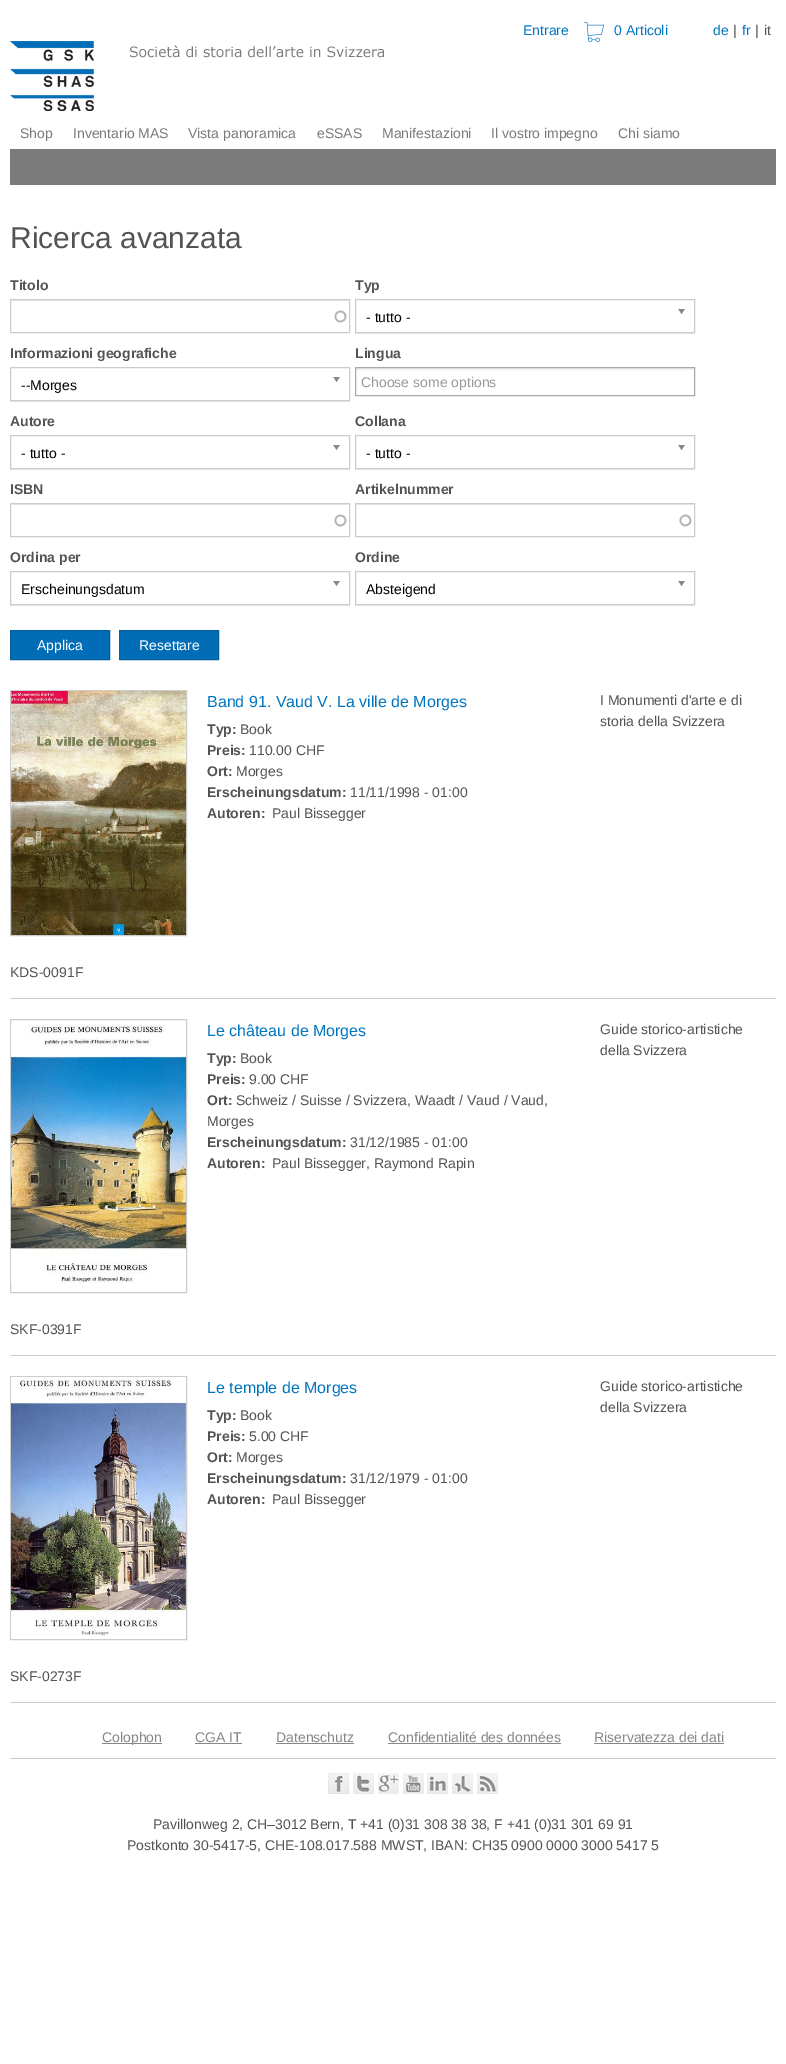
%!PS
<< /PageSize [786 2064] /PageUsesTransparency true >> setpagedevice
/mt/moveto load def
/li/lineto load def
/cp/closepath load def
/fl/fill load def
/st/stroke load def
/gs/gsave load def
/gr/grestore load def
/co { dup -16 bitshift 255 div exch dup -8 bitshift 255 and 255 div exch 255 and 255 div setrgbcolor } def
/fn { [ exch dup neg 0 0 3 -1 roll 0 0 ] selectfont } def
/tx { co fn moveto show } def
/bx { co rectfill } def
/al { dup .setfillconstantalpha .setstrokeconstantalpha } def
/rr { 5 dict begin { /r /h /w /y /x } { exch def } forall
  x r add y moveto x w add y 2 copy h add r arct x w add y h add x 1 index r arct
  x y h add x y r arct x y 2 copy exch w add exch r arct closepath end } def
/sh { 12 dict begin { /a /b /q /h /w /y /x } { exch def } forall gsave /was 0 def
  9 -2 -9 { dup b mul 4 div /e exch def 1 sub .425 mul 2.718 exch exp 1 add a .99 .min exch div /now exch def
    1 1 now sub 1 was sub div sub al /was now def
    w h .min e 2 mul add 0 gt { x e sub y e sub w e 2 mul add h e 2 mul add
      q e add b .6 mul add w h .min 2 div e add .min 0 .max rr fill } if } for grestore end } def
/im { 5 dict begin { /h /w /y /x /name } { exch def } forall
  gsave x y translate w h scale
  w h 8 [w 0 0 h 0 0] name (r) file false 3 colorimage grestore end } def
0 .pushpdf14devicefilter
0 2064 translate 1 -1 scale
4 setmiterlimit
0 0 786 2064 16#FFFFFF bx
(media/1.raw) 584 22 20 20 im
(media/2.raw) 10 41 374 70 im
10 149 766 36 16#7B7A7A bx
(media/3.raw) 334 310 13 13 im
11 300 338 1 16#ECECEC bx
16#CCCCCC co
10.5 299.5 339 33 rectstroke
gs
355 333 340 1 rectclip
16#000000 co
355 300 340 34 0 .5 .1 sh
gr
355.5 299.5 339 33 rectstroke
(media/4.raw) 678 309 7 6 im
gs
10 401 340 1 rectclip
16#000000 co
10 368 340 34 0 .5 .1 sh
gr
10.5 367.5 339 33 rectstroke
(media/4.raw) 333 377 7 6 im
gs 356 368 mt 694 368 li 694 371 li 356 371 li cp clip newpath
<< /ShadingType 2 /ColorSpace /DeviceRGB /Coords [525 368 525 395] /Extend [true true] /Function << /FunctionType 3 /Domain [0 1] /Functions [<< /FunctionType 2 /Domain [0 1] /C0 [.933 .933 .933] /C1 [.933 .933 .933] /N 1 >> << /FunctionType 2 /Domain [0 1] /C0 [.933 .933 .933] /C1 [1 1 1] /N 1 >> << /FunctionType 2 /Domain [0 1] /C0 [1 1 1] /C1 [1 1 1] /N 1 >>] /Bounds [.01 .15] /Encode [0 1 0 1 0 1] >> >> shfill gr
16#AAAAAA co
355.5 367.5 339 28 rectstroke
gs
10 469 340 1 rectclip
16#000000 co
10 436 340 34 0 .5 .1 sh
gr
16#CCCCCC co
10.5 435.5 339 33 rectstroke
(media/4.raw) 333 445 7 6 im
gs
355 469 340 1 rectclip
16#000000 co
355 436 340 34 0 .5 .1 sh
gr
355.5 435.5 339 33 rectstroke
(media/4.raw) 678 445 7 6 im
(media/3.raw) 334 514 13 13 im
11 504 338 1 16#ECECEC bx
16#CCCCCC co
10.5 503.5 339 33 rectstroke
(media/3.raw) 679 514 13 13 im
356 504 338 1 16#ECECEC bx
16#CCCCCC co
355.5 503.5 339 33 rectstroke
gs
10 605 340 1 rectclip
16#000000 co
10 572 340 34 0 .5 .1 sh
gr
10.5 571.5 339 33 rectstroke
(media/4.raw) 333 581 7 6 im
gs
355 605 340 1 rectclip
16#000000 co
355 572 340 34 0 .5 .1 sh
gr
355.5 571.5 339 33 rectstroke
(media/4.raw) 678 581 7 6 im
16#016DB6 co
10.5 630.5 mt 109.5 630.5 li 109.5 659.5 li 10.5 659.5 li cp gs fl gr
16#015E9D co
st
16#016DB6 co
119.5 630.5 mt 218.5 630.5 li 218.5 659.5 li 119.5 659.5 li cp gs fl gr
16#015E9D co
st
10 998 766 1 16#CCCCCC bx
10.5 690.5 176 245 rectstroke
(media/5.raw) 11 691 175 244 im
10 1355 766 1 16#CCCCCC bx
10.5 1019.5 176 273 rectstroke
(media/6.raw) 11 1024 175 259 im
10 1702 766 1 16#CCCCCC bx
10.5 1376.5 176 263 rectstroke
(media/7.raw) 11 1377 175 262 im
10 1758 766 1 16#CACACA bx
102 1743 60 1 16#868686 bx
195 1743 47 1 16#868686 bx
276 1743 78 1 16#868686 bx
388 1743 173 1 16#868686 bx
594 1743 130 1 16#868686 bx
(media/8.raw) 328 1773 21 21 im
(media/9.raw) 353 1773 21 21 im
(media/10.raw) 378 1773 21 21 im
(media/11.raw) 403 1773 21 21 im
(media/12.raw) 427 1773 21 21 im
(media/13.raw) 452 1773 21 21 im
(media/14.raw) 477 1773 21 21 im
(Entrare) 523 35 /LiberationSans-Regular 14 16#0075BF tx
(0 Articoli) 614 35 /LiberationSans-Regular 14 16#0075BF tx
(de) 713 35 /LiberationSans-Regular 14 16#0075BF tx
(|) 733 35 /LiberationSans-Regular 14 16#535353 tx
(fr) 742 35 /LiberationSans-Regular 14 16#0075BF tx
(|) 755 35 /LiberationSans-Regular 14 16#535353 tx
(it) 764 35 /LiberationSans-Regular 14 16#535353 tx
(Shop) 20 138 /LiberationSans-Regular 14 16#7B7A7A tx
(Inventario MAS) 73 138 /LiberationSans-Regular 14 16#7B7A7A tx
(Vista panoramica) 188 138 /LiberationSans-Regular 14 16#7B7A7A tx
(eSSAS) 317 138 /LiberationSans-Regular 14 16#7B7A7A tx
(Manifestazioni) 382 138 /LiberationSans-Regular 14 16#7B7A7A tx
(Il vostro impegno) 491 138 /LiberationSans-Regular 14 16#7B7A7A tx
(Chi siamo) 618 138 /LiberationSans-Regular 14 16#7B7A7A tx
(Ricerca avanzata) 10 248 /LiberationSans-Regular 30 16#535353 tx
(Titolo) 10 290 /LiberationSans-Bold 14 16#535353 tx
(Typ) 355 290 /LiberationSans-Bold 14 16#535353 tx
(- tutto -) 366 322 /LiberationSans-Regular 14 16#000000 tx
(Informazioni geografiche) 10 358 /LiberationSans-Bold 14 16#535353 tx
(--Morges) 21 390 /LiberationSans-Regular 14 16#000000 tx
(Lingua) 355 358 /LiberationSans-Bold 14 16#535353 tx
(Choose some options) 361 387 /LiberationSans-Regular 14 16#999999 tx
(Autore) 10 426 /LiberationSans-Bold 14 16#535353 tx
(- tutto -) 21 458 /LiberationSans-Regular 14 16#000000 tx
(Collana) 355 426 /LiberationSans-Bold 14 16#535353 tx
(- tutto -) 366 458 /LiberationSans-Regular 14 16#000000 tx
(ISBN) 10 494 /LiberationSans-Bold 14 16#535353 tx
(Artikelnummer) 355 494 /LiberationSans-Bold 14 16#535353 tx
(Ordina per) 10 562 /LiberationSans-Bold 14 16#535353 tx
(Erscheinungsdatum) 21 594 /LiberationSans-Regular 14 16#000000 tx
(Ordine) 355 562 /LiberationSans-Bold 14 16#535353 tx
(Absteigend) 366 594 /LiberationSans-Regular 14 16#000000 tx
(Applica) 37 650 /LiberationSans-Regular 14 16#FFFFFF tx
(Resettare) 139 650 /LiberationSans-Regular 14 16#FFFFFF tx
(Band 91. Vaud V. La ville de Morges) 207 707 /LiberationSans-Regular 16 16#0075BF tx
(Typ:) 207 734 /LiberationSans-Bold 14 16#535353 tx
(Book) 240 734 /LiberationSans-Regular 14 16#535353 tx
(Preis:) 207 755 /LiberationSans-Bold 14 16#535353 tx
(110.00 CHF) 249 755 /LiberationSans-Regular 14 16#535353 tx
(Ort:) 207 776 /LiberationSans-Bold 14 16#535353 tx
(Morges) 236 776 /LiberationSans-Regular 14 16#535353 tx
(Erscheinungsdatum:) 207 797 /LiberationSans-Bold 14 16#535353 tx
(11/11/1998 - 01:00) 350 797 /LiberationSans-Regular 14 16#535353 tx
(Autoren:) 207 818 /LiberationSans-Bold 14 16#535353 tx
(Paul Bissegger) 272 818 /LiberationSans-Regular 14 16#535353 tx
(I Monumenti d'arte e di) 600 705 /LiberationSans-Regular 14 16#535353 tx
(storia della Svizzera) 600 726 /LiberationSans-Regular 14 16#535353 tx
(KDS-0091F) 10 977 /LiberationSans-Regular 14 16#535353 tx
(Le château de Morges) 207 1036 /LiberationSans-Regular 16 16#0075BF tx
(Typ:) 207 1063 /LiberationSans-Bold 14 16#535353 tx
(Book) 240 1063 /LiberationSans-Regular 14 16#535353 tx
(Preis:) 207 1084 /LiberationSans-Bold 14 16#535353 tx
(9.00 CHF) 249 1084 /LiberationSans-Regular 14 16#535353 tx
(Ort:) 207 1105 /LiberationSans-Bold 14 16#535353 tx
(Schweiz / Suisse / Svizzera, Waadt / Vaud / Vaud,) 236 1105 /LiberationSans-Regular 14 16#535353 tx
(Morges) 207 1126 /LiberationSans-Regular 14 16#535353 tx
(Erscheinungsdatum:) 207 1147 /LiberationSans-Bold 14 16#535353 tx
(31/12/1985 - 01:00) 350 1147 /LiberationSans-Regular 14 16#535353 tx
(Autoren:) 207 1168 /LiberationSans-Bold 14 16#535353 tx
(Paul Bissegger, Raymond Rapin) 272 1168 /LiberationSans-Regular 14 16#535353 tx
(Guide storico-artistiche) 600 1034 /LiberationSans-Regular 14 16#535353 tx
(della Svizzera) 600 1055 /LiberationSans-Regular 14 16#535353 tx
(SKF-0391F) 10 1334 /LiberationSans-Regular 14 16#535353 tx
(Le temple de Morges) 207 1393 /LiberationSans-Regular 16 16#0075BF tx
(Typ:) 207 1420 /LiberationSans-Bold 14 16#535353 tx
(Book) 240 1420 /LiberationSans-Regular 14 16#535353 tx
(Preis:) 207 1441 /LiberationSans-Bold 14 16#535353 tx
(5.00 CHF) 249 1441 /LiberationSans-Regular 14 16#535353 tx
(Ort:) 207 1462 /LiberationSans-Bold 14 16#535353 tx
(Morges) 236 1462 /LiberationSans-Regular 14 16#535353 tx
(Erscheinungsdatum:) 207 1483 /LiberationSans-Bold 14 16#535353 tx
(31/12/1979 - 01:00) 350 1483 /LiberationSans-Regular 14 16#535353 tx
(Autoren:) 207 1504 /LiberationSans-Bold 14 16#535353 tx
(Paul Bissegger) 272 1504 /LiberationSans-Regular 14 16#535353 tx
(Guide storico-artistiche) 600 1391 /LiberationSans-Regular 14 16#535353 tx
(della Svizzera) 600 1412 /LiberationSans-Regular 14 16#535353 tx
(SKF-0273F) 10 1681 /LiberationSans-Regular 14 16#535353 tx
(Colophon) 102 1742 /LiberationSans-Regular 14 16#868686 tx
(CGA IT) 195 1742 /LiberationSans-Regular 14 16#868686 tx
(Datenschutz) 276 1742 /LiberationSans-Regular 14 16#868686 tx
(Confidentialité des données) 388 1742 /LiberationSans-Regular 14 16#868686 tx
(Riservatezza dei dati) 594 1742 /LiberationSans-Regular 14 16#868686 tx
(Pavillonweg 2, CH–3012 Bern, T +41 \(0\)31 308 38 38, F +41 \(0\)31 301 69 91) 153 1829 /LiberationSans-Regular 14 16#535353 tx
(Postkonto 30-5417-5, CHE-108.017.588 MWST, IBAN: CH35 0900 0000 3000 5417 5) 127 1850 /LiberationSans-Regular 14 16#535353 tx
.poppdf14devicefilter showpage
